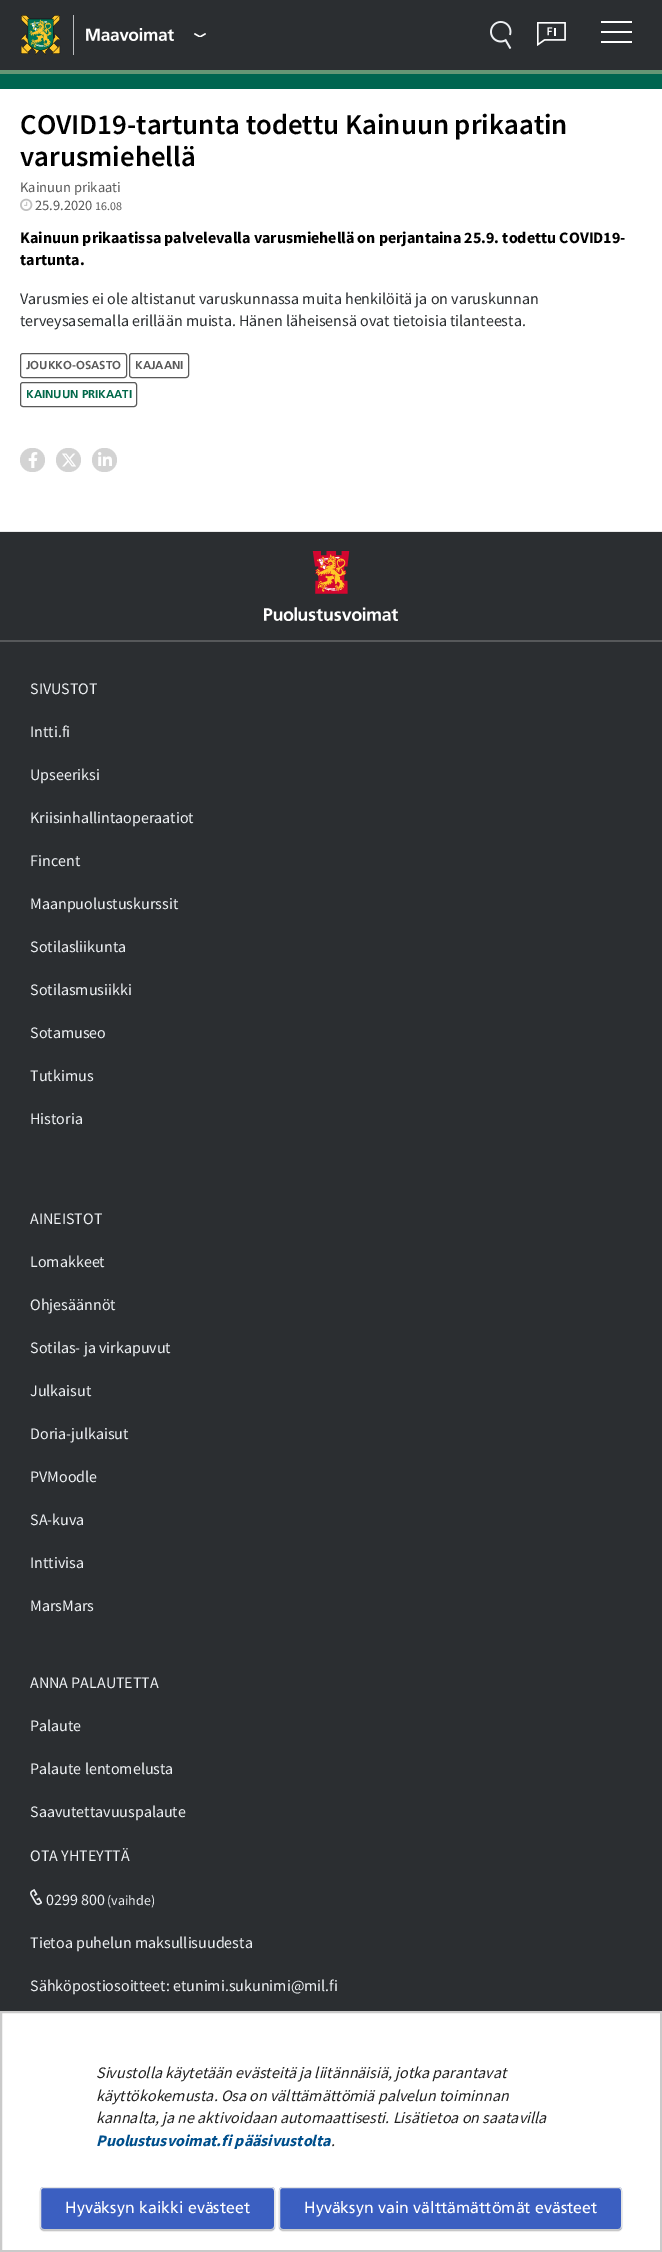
%!PS
<< /PageSize [662 2252] /PageUsesTransparency true >> setpagedevice
/mt/moveto load def
/li/lineto load def
/ct/curveto load def
/fl/fill load def
/st/stroke load def
/lw/setlinewidth load def
/co { dup -16 bitshift 255 div exch dup -8 bitshift 255 and 255 div exch 255 and 255 div setrgbcolor } def
/fn { [ exch dup neg 0 0 3 -1 roll 0 0 ] selectfont } def
/tx { co fn moveto show } def
/bx { co rectfill } def
/al { dup .setfillconstantalpha .setstrokeconstantalpha } def
/rr { 5 dict begin { /r /h /w /y /x } { exch def } forall
  x r add y moveto x w add y 2 copy h add r arct x w add y h add x 1 index r arct
  x y h add x y r arct x y 2 copy exch w add exch r arct closepath end } def
/sh { 12 dict begin { /a /b /q /h /w /y /x } { exch def } forall gsave /was 0 def
  9 -2 -9 { dup b mul 4 div /e exch def 1 sub .425 mul 2.718 exch exp 1 add a .99 .min exch div /now exch def
    1 1 now sub 1 was sub div sub al /was now def
    w h .min e 2 mul add 0 gt { x e sub y e sub w e 2 mul add h e 2 mul add
      q e add b .6 mul add w h .min 2 div e add .min 0 .max rr fill } if } for grestore end } def
/im { 5 dict begin { /h /w /y /x /name } { exch def } forall
  gsave x y translate w h scale
  w h 8 [w 0 0 h 0 0] name (r) file false 3 colorimage grestore end } def
0 .pushpdf14devicefilter
0 2252 translate 1 -1 scale
4 setmiterlimit
0 0 662 2252 16#FFFFFF bx
0 0 662 70 16#2B2E31 bx
73 15 1 40 16#BABCBF bx
(media/1.raw) 20 15 41 40 im
(media/2.raw) 86 28 88 13 im
(media/3.raw) 194 33 12 4 im
(media/4.raw) 490 21 22 28 im
(media/5.raw) 537 22 29 24 im
16#FFFFFF co
601 21 31 2 .5 rr fl
601 31 31 2 .5 rr fl
601 41 31 2 .5 rr fl
0 74 662 15 16#006550 bx
0 70 662 4 16#669675 bx
(media/6.raw) 20 198 13 13 im
16#595959 co
20.5 353.5 106 24 2.5 rr st
129.5 353.5 59 24 2.5 rr st
20.5 382.5 116 24 2.5 rr st
16#D3D3D3 co
20 448 25 24 12 rr fl
(media/7.raw) 28 452 10 16 im
56 448 25 24 12 rr fl
(media/8.raw) 62 453 14 14 im
92 448 25 24 12 rr fl
(media/9.raw) 98 452 14 14 im
0 532 662 1479 16#2B2E31 bx
0 531 662 1 16#EAEAEA bx
0 640 662 2 16#56585A bx
(media/10.raw) 264 551 134 70 im
(media/11.raw) 30 1889 12 16 im
16#CACACA co
2 lw
1 2012 660 239 rectstroke
16#000000 co
40 2188 235 43 4 .5 .25 sh
16#3B5FC1 co
40 2187 235 43 4 rr fl
16#C9CBCC co
1 lw
273.5 2228.5 mt 273 2229 272 2229.5 271 2229.5 ct 44 2229.5 li 43 2229.5 42 2229 41.5 2228.5 ct st
16#E3E4E5 co
41.5 2228.5 mt 41 2228 40.5 2227 40.5 2226 ct 40.5 2191 li 40.5 2190 41 2189 41.5 2188.5 ct 42 2188 43 2187.5 44 2187.5 ct 271 2187.5 li 272 2187.5 273 2188 273.5 2188.5 ct 274 2189 274.5 2190 274.5 2191 ct 274.5 2226 li 274.5 2227 274 2228 273.5 2228.5 ct st
16#000000 co
279 2188 343 43 4 .5 .25 sh
16#3B5FC1 co
279 2187 343 43 4 rr fl
16#C9CBCC co
620.5 2228.5 mt 620 2229 619 2229.5 618 2229.5 ct 283 2229.5 li 282 2229.5 281 2229 280.5 2228.5 ct st
16#E3E4E5 co
280.5 2228.5 mt 280 2228 279.5 2227 279.5 2226 ct 279.5 2191 li 279.5 2190 280 2189 280.5 2188.5 ct 281 2188 282 2187.5 283 2187.5 ct 618 2187.5 li 619 2187.5 620 2188 620.5 2188.5 ct 621 2189 621.5 2190 621.5 2191 ct 621.5 2226 li 621.5 2227 621 2228 620.5 2228.5 ct st
(COVID19-tartunta todettu Kainuun prikaatin) 20 134 /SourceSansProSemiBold-SemiBold 28.75 16#000000 tx
(varusmiehellä) 20 166 /SourceSansProSemiBold-SemiBold 28.75 16#000000 tx
(Kainuun prikaati) 20 192 /SourceSansPro-Regular 14.5 16#595959 tx
(25.9.2020) 35 210 /SourceSansPro-Regular 14.5 16#595959 tx
(16.08) 95 210 /SourceSansPro-Regular 12 16#595959 tx
(Kainuun prikaatissa palvelevalla varusmiehellä on perjantaina 25.9. todettu COVID19-) 20 243 /SourceSansPro-Bold 16 16#000000 tx
(tartunta.) 20 265 /SourceSansPro-Bold 16 16#000000 tx
(Varusmies ei ole altistanut varuskunnassa muita henkilöitä ja on varuskunnan) 20 304 /SourceSansPro-Regular 16 16#2B2E31 tx
(terveysasemalla erillään muista. Hänen läheisensä ovat tietoisia tilanteesta.) 20 326 /SourceSansPro-Regular 16 16#2B2E31 tx
(JOUKKO-OSASTO) 26 369 /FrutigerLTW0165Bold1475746-Bold 11.5 16#595959 tx
(KAJAANI) 135 369 /FrutigerLTW0165Bold1475746-Bold 11.5 16#595959 tx
(KAINUUN PRIKAATI) 26 398 /FrutigerLTW0165Bold1475746-Bold 11.5 16#006849 tx
(SIVUSTOT) 30 694 /SourceSansPro-Regular 16 16#EDF0F3 tx
(Intti.fi) 30 737 /SourceSansPro-Regular 16 16#EDF0F3 tx
(Upseeriksi) 30 780 /SourceSansPro-Regular 16 16#EDF0F3 tx
(Kriisinhallintaoperaatiot) 30 823 /SourceSansPro-Regular 16 16#EDF0F3 tx
(Fincent) 30 866 /SourceSansPro-Regular 16 16#EDF0F3 tx
(Maanpuolustuskurssit) 30 909 /SourceSansPro-Regular 16 16#EDF0F3 tx
(Sotilasliikunta) 30 952 /SourceSansPro-Regular 16 16#EDF0F3 tx
(Sotilasmusiikki) 30 995 /SourceSansPro-Regular 16 16#EDF0F3 tx
(Sotamuseo) 30 1038 /SourceSansPro-Regular 16 16#EDF0F3 tx
(Tutkimus) 30 1081 /SourceSansPro-Regular 16 16#EDF0F3 tx
(Historia) 30 1124 /SourceSansPro-Regular 16 16#EDF0F3 tx
(AINEISTOT) 30 1224 /SourceSansPro-Regular 16 16#EDF0F3 tx
(Lomakkeet) 30 1267 /SourceSansPro-Regular 16 16#EDF0F3 tx
(Ohjesäännöt) 30 1310 /SourceSansPro-Regular 16 16#EDF0F3 tx
(Sotilas- ja virkapuvut) 30 1353 /SourceSansPro-Regular 16 16#EDF0F3 tx
(Julkaisut) 30 1396 /SourceSansPro-Regular 16 16#EDF0F3 tx
(Doria-julkaisut) 30 1439 /SourceSansPro-Regular 16 16#EDF0F3 tx
(PVMoodle) 30 1482 /SourceSansPro-Regular 16 16#EDF0F3 tx
(SA-kuva) 30 1525 /SourceSansPro-Regular 16 16#EDF0F3 tx
(Inttivisa) 30 1568 /SourceSansPro-Regular 16 16#EDF0F3 tx
(MarsMars) 30 1611 /SourceSansPro-Regular 16 16#EDF0F3 tx
(ANNA PALAUTETTA) 30 1688 /SourceSansPro-Regular 16 16#EDF0F3 tx
(Palaute) 30 1731 /SourceSansPro-Regular 16 16#EDF0F3 tx
(Palaute lentomelusta) 30 1774 /SourceSansPro-Regular 16 16#EDF0F3 tx
(Saavutettavuuspalaute) 30 1817 /SourceSansPro-Regular 16 16#EDF0F3 tx
(OTA YHTEYTTÄ) 30 1861 /SourceSansPro-Regular 16 16#EDF0F3 tx
(0299 800) 46 1905 /SourceSansPro-Regular 16 16#EDF0F3 tx
(\(vaihde\)) 107 1905 /SourceSansPro-Regular 14 16#EDF0F3 tx
(Tietoa puhelun maksullisuudesta) 30 1948 /SourceSansPro-Regular 16 16#EDF0F3 tx
(Sähköpostiosoitteet: etunimi.sukunimi@mil.fi) 30 1991 /SourceSansPro-Regular 16 16#EDF0F3 tx
(Sivustolla käytetään evästeitä ja liitännäisiä, jotka parantavat) 96 2078 /SourceSansPro-Italic 16 16#212121 tx
(käyttökokemusta. Osa on välttämättömiä palvelun toiminnan) 96 2101 /SourceSansPro-Italic 16 16#212121 tx
(kannalta, ja ne aktivoidaan automaattisesti. Lisätietoa on saatavilla) 96 2123 /SourceSansPro-Italic 16 16#212121 tx
(Puolustusvoimat.fi pääsivustolta) 96 2146 /SourceSansPro-BoldItalic 16 16#004F8C tx
(.) 331 2146 /SourceSansPro-Italic 16 16#212121 tx
(Hyväksyn kaikki evästeet) 65 2213 /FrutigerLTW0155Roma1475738-Regular 16 16#FFFFFF tx
(Hyväksyn vain välttämättömät evästeet) 304 2213 /FrutigerLTW0155Roma1475738-Regular 16 16#FFFFFF tx
.poppdf14devicefilter showpage
